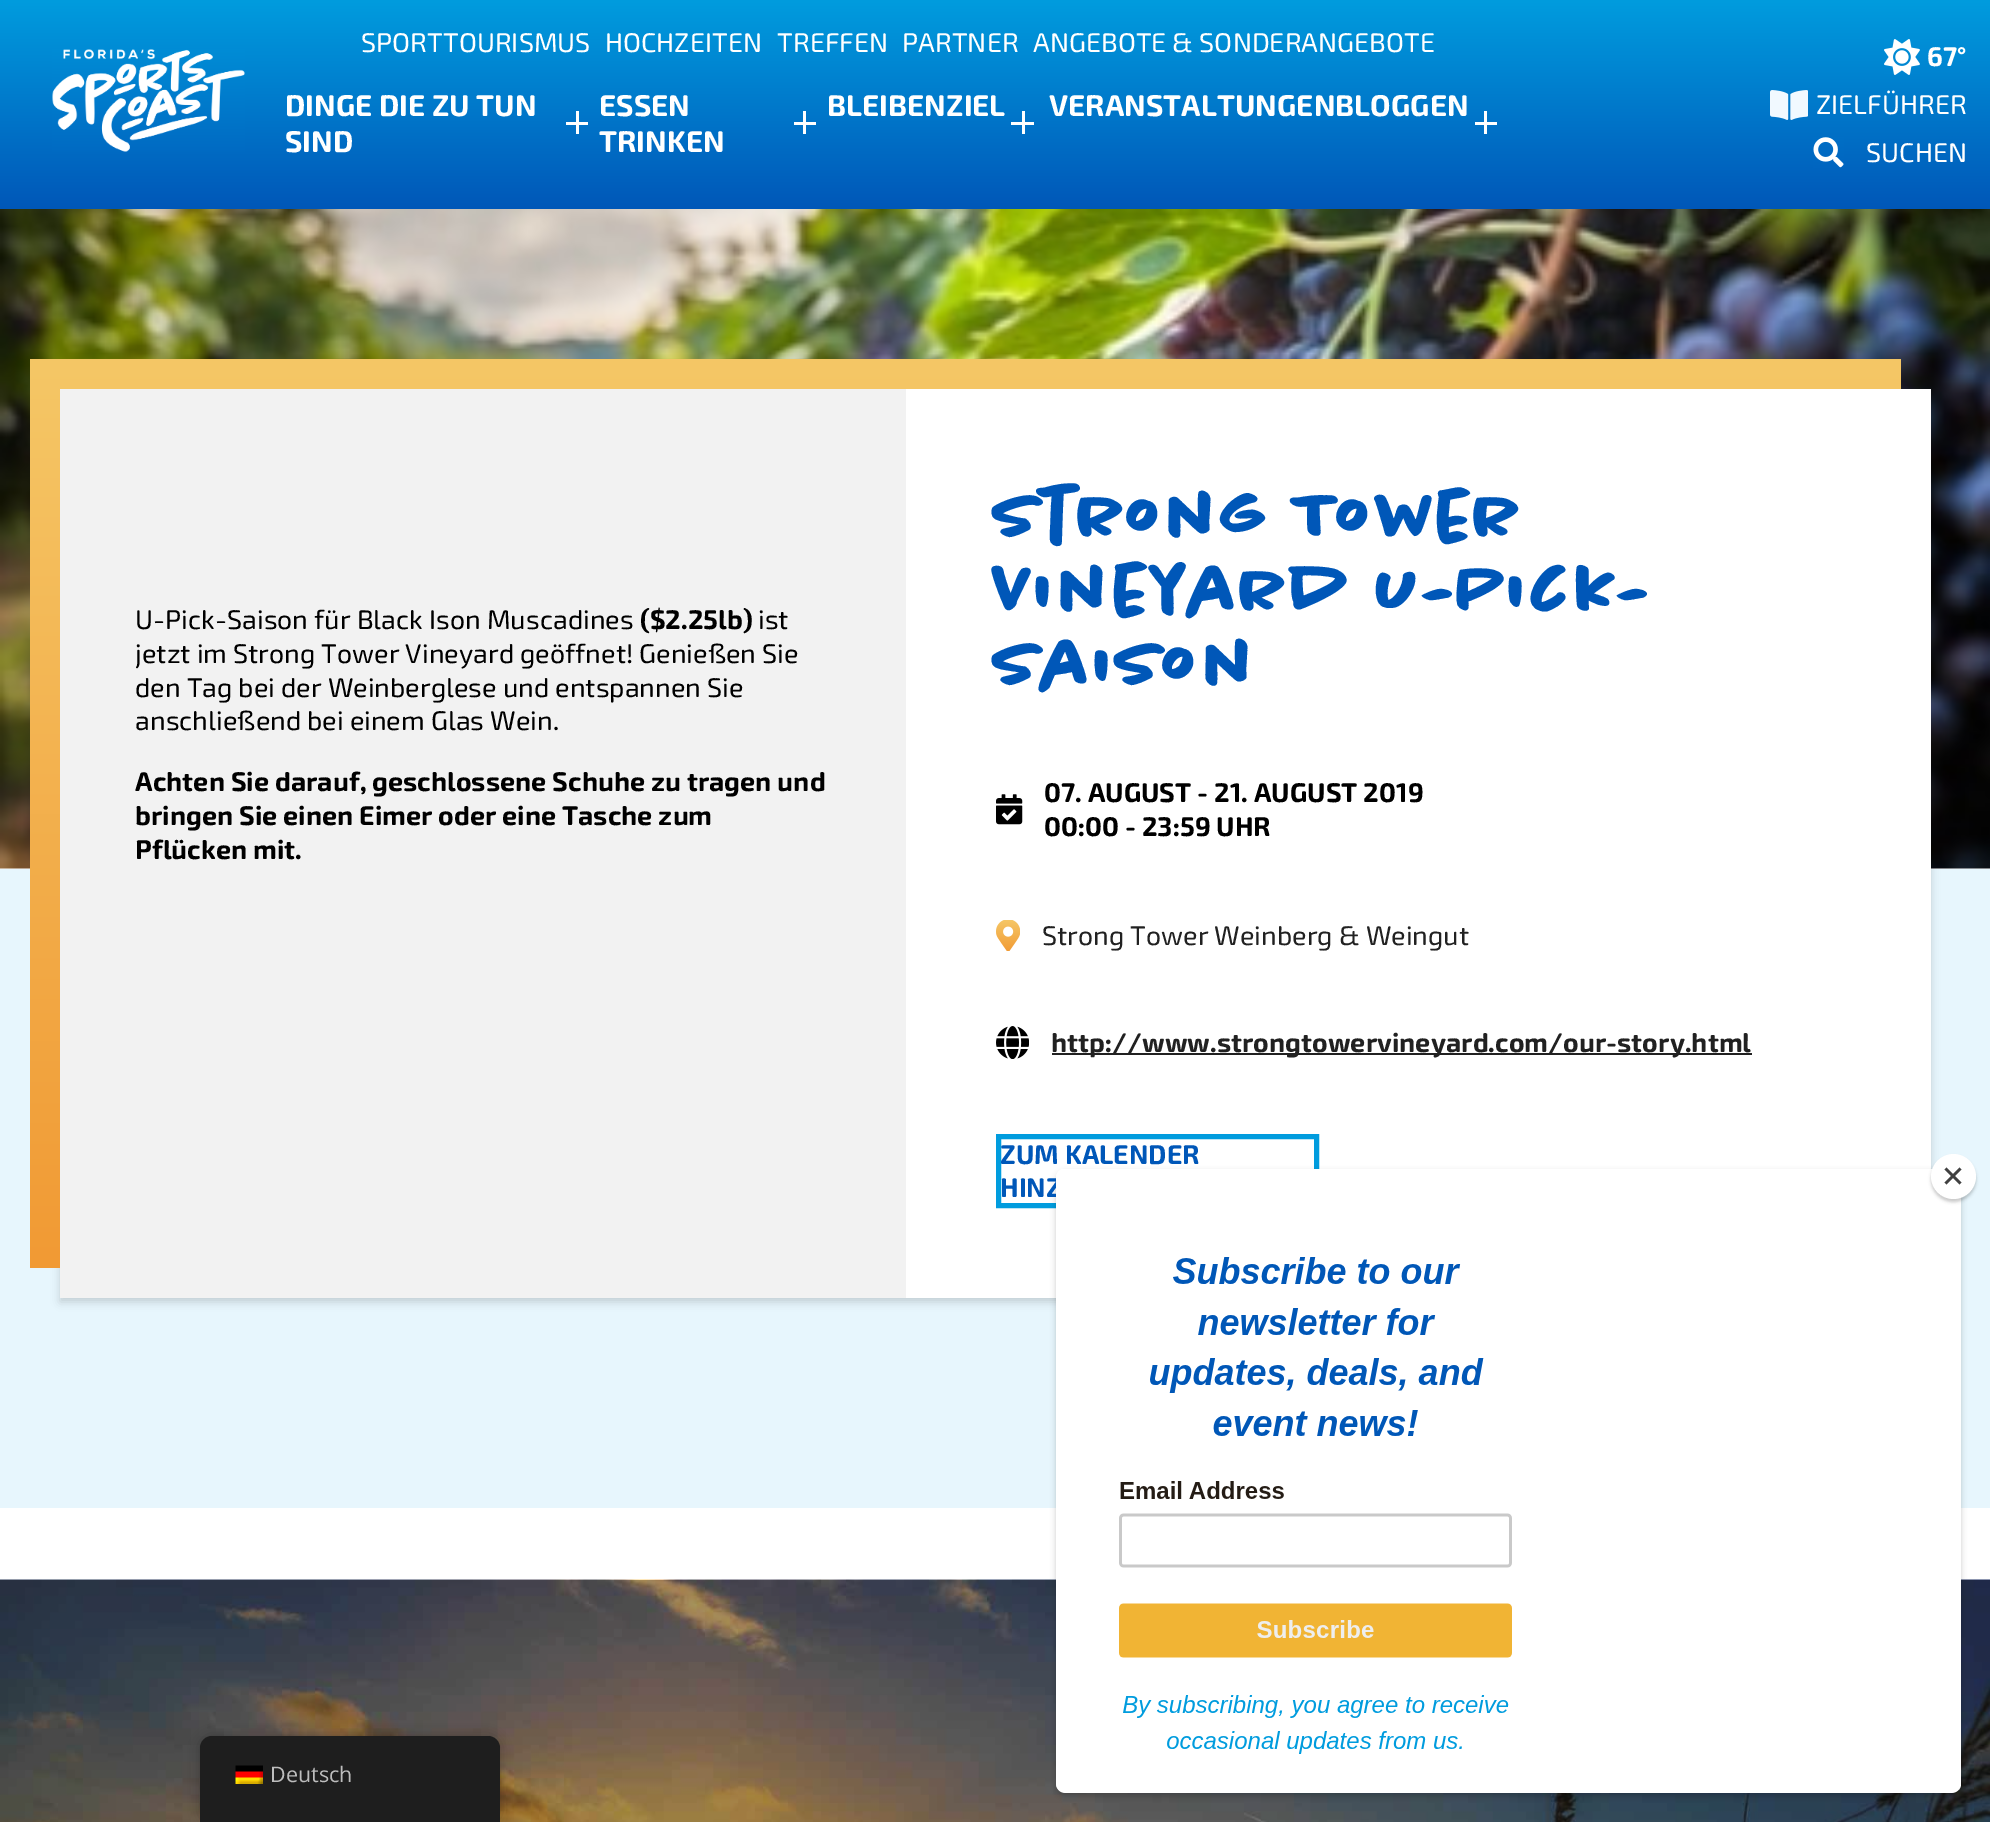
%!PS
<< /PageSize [1990 1822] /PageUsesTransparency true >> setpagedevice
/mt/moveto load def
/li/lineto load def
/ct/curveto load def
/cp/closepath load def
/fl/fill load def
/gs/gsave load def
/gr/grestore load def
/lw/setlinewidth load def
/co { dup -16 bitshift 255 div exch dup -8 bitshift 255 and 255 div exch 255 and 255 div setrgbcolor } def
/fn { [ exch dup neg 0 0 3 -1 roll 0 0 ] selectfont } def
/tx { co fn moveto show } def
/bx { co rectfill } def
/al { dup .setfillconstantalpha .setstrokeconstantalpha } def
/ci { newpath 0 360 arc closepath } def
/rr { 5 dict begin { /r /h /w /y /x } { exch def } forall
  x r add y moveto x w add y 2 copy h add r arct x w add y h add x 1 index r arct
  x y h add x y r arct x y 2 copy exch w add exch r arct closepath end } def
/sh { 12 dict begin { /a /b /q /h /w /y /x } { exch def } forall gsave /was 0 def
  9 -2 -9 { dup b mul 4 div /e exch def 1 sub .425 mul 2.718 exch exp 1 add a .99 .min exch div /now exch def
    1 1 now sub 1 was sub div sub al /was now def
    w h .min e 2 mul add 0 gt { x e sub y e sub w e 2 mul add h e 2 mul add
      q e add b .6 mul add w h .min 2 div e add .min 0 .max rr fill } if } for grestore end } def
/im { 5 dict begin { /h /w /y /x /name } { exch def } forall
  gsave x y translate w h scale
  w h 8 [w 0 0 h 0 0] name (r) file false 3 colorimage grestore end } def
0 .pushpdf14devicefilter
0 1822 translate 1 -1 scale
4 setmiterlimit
0 0 1990 1822 16#FFFFFF bx
gs 0 0 mt 1990 0 li 1990 209 li 0 209 li cp clip newpath
<< /ShadingType 2 /ColorSpace /DeviceRGB /Coords [995 0 995 209] /Extend [true true] /Function << /FunctionType 2 /Domain [0 1] /C0 [0 .612 .871] /C1 [0 .341 .722] /N 1 >> >> shfill gr
(media/1.raw) 52 49 193 103 im
566 122 22 3 16#FFFFFF bx
576 111 3 23 16#FFFFFF bx
794 122 22 3 16#FFFFFF bx
803 111 3 23 16#FFFFFF bx
1011 122 23 3 16#FFFFFF bx
1022 111 3 23 16#FFFFFF bx
1475 122 22 3 16#FFFFFF bx
1484 111 3 23 16#FFFFFF bx
(media/2.raw) 1884 39 36 36 im
(media/3.raw) 1770 90 38 30 im
(media/4.raw) 1813 137 31 31 im
(media/5.raw) 0 209 1990 660 im
0 869 1990 639 16#E7F6FD bx
16#000000 co
60 393 1871 909 0 4.5 .16 sh
gs 30 359 mt 1901 359 li 1901 1268 li 30 1268 li cp clip newpath
<< /ShadingType 2 /ColorSpace /DeviceRGB /Coords [965 358 965 1268] /Extend [true true] /Function << /FunctionType 2 /Domain [0 1] /C0 [.961 .78 .4] /C1 [.945 .604 .204] /N 1 >> >> shfill gr
60 389 846 909 16#F2F2F2 bx
906 389 1025 909 16#FFFFFF bx
(media/6.raw) 996 794 27 31 im
(media/7.raw) 996 920 24 31 im
(media/8.raw) 996 1026 33 33 im
1052 1053 700 2 16#212121 bx
16#009CDE co
5 lw
998.5 1136.5 318 69 rectstroke
(media/10.raw) 0 1579 1990 243 im
16#000000 co
1056 1172 905 624 9 3 .2 sh
200 1736 300 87 12 6 .25 sh
16#1E1E1E co
212 1736 mt 488 1736 li 494.5 1736 500 1741.5 500 1748 ct 500 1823 li 200 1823 li 200 1748 li 200 1741.5 205.5 1736 212 1736 ct cp fl
(media/11.raw) 235 1765 28 19 im
(SPORTTOURISMUS) 361 52 /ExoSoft-Regular 27 16#FFFFFF tx
(HOCHZEITEN) 605 52 /ExoSoft-Regular 27 16#FFFFFF tx
(TREFFEN) 777 52 /ExoSoft-Regular 27 16#FFFFFF tx
(PARTNER) 902 52 /ExoSoft-Regular 27 16#FFFFFF tx
(ANGEBOTE & SONDERANGEBOTE) 1033 52 /ExoSoft-Regular 27 16#FFFFFF tx
(DINGE DIE ZU TUN) 285 116 /ExoSoft-Bold 30 16#FFFFFF tx
(SIND) 285 152 /ExoSoft-Bold 30 16#FFFFFF tx
(ESSEN) 599 116 /ExoSoft-Bold 30 16#FFFFFF tx
(TRINKEN) 599 152 /ExoSoft-Bold 30 16#FFFFFF tx
(BLEIBENZIEL) 827 116 /ExoSoft-Bold 30 16#FFFFFF tx
(VERANSTALTUNGENBLOGGEN) 1049 116 /ExoSoft-Bold 30 16#FFFFFF tx
(67°) 1927 66 /ExoSoft-Bold 27 16#FFFFFF tx
(ZIELFÜHRER) 1816 114 /ExoSoft-Regular 27 16#FFFFFF tx
(SUCHEN) 1866 162 /ExoSoft-Regular 27 16#FFFFFF tx
(U-Pick-Saison für Black Ison Muscadines) 135 629 /ExoSoft-Regular 27 16#000000 tx
(\($2.25lb\)) 640 629 /ExoSoft-Bold 27 16#000000 tx
(ist) 758 629 /ExoSoft-Regular 27 16#000000 tx
(jetzt im Strong Tower Vineyard geöffnet! Genießen Sie) 135 663 /ExoSoft-Regular 27 16#000000 tx
(den Tag bei der Weinberglese und entspannen Sie) 135 697 /ExoSoft-Regular 27 16#000000 tx
(anschließend bei einem Glas Wein.) 135 730 /ExoSoft-Regular 27 16#000000 tx
(Achten Sie darauf, geschlossene Schuhe zu tragen und) 135 791 /ExoSoft-Bold 27 16#000000 tx
(bringen Sie einen Eimer oder eine Tasche zum) 135 825 /ExoSoft-Bold 27 16#000000 tx
(Pflücken mit.) 135 859 /ExoSoft-Bold 27 16#000000 tx
(Strong Tower) 995 542 /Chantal-Bold 74.5 16#0057B8 tx
(Vineyard U-Pick-) 995 616 /Chantal-Bold 74.5 16#0057B8 tx
(Saison) 995 690 /Chantal-Bold 74.5 16#0057B8 tx
(07. AUGUST - 21. AUGUST 2019) 1044 802 /ExoSoft-Bold 27 16#000000 tx
(00:00 - 23:59 UHR) 1044 836 /ExoSoft-Bold 27 16#000000 tx
(Strong Tower Weinberg & Weingut) 1042 945 /ExoSoft-Regular 27 16#212121 tx
(http://www.strongtowervineyard.com/our-story.html) 1051 1052 /ExoSoft-Bold 27 16#212121 tx
(ZUM KALENDER) 1000 1164 /ExoSoft-Bold 27 16#0057B8 tx
(HINZ) 1000 1197 /ExoSoft-Bold 27 16#0057B8 tx
16#FFFFFF co
1056 1169 905 624 9 rr fl
(media/9.raw) 1056 1169 903 624 im
16#000000 co
1931 1157 45 45 22.5 1.5 .2 sh
16#FFFFFF co
1953.5 1176.5 22.5 ci fl
16#414141 co
1959.5 1167.5 mt 1961.5 1169.5 li 1946.5 1184.5 li 1944.5 1182.5 li cp fl
1944.5 1169.5 mt 1946.5 1167.5 li 1961.5 1182.5 li 1959.5 1184.5 li cp fl
(Deutsch) 270 1782 /OpenSans-Regular 21.5 16#BDBDBD tx
.poppdf14devicefilter showpage
